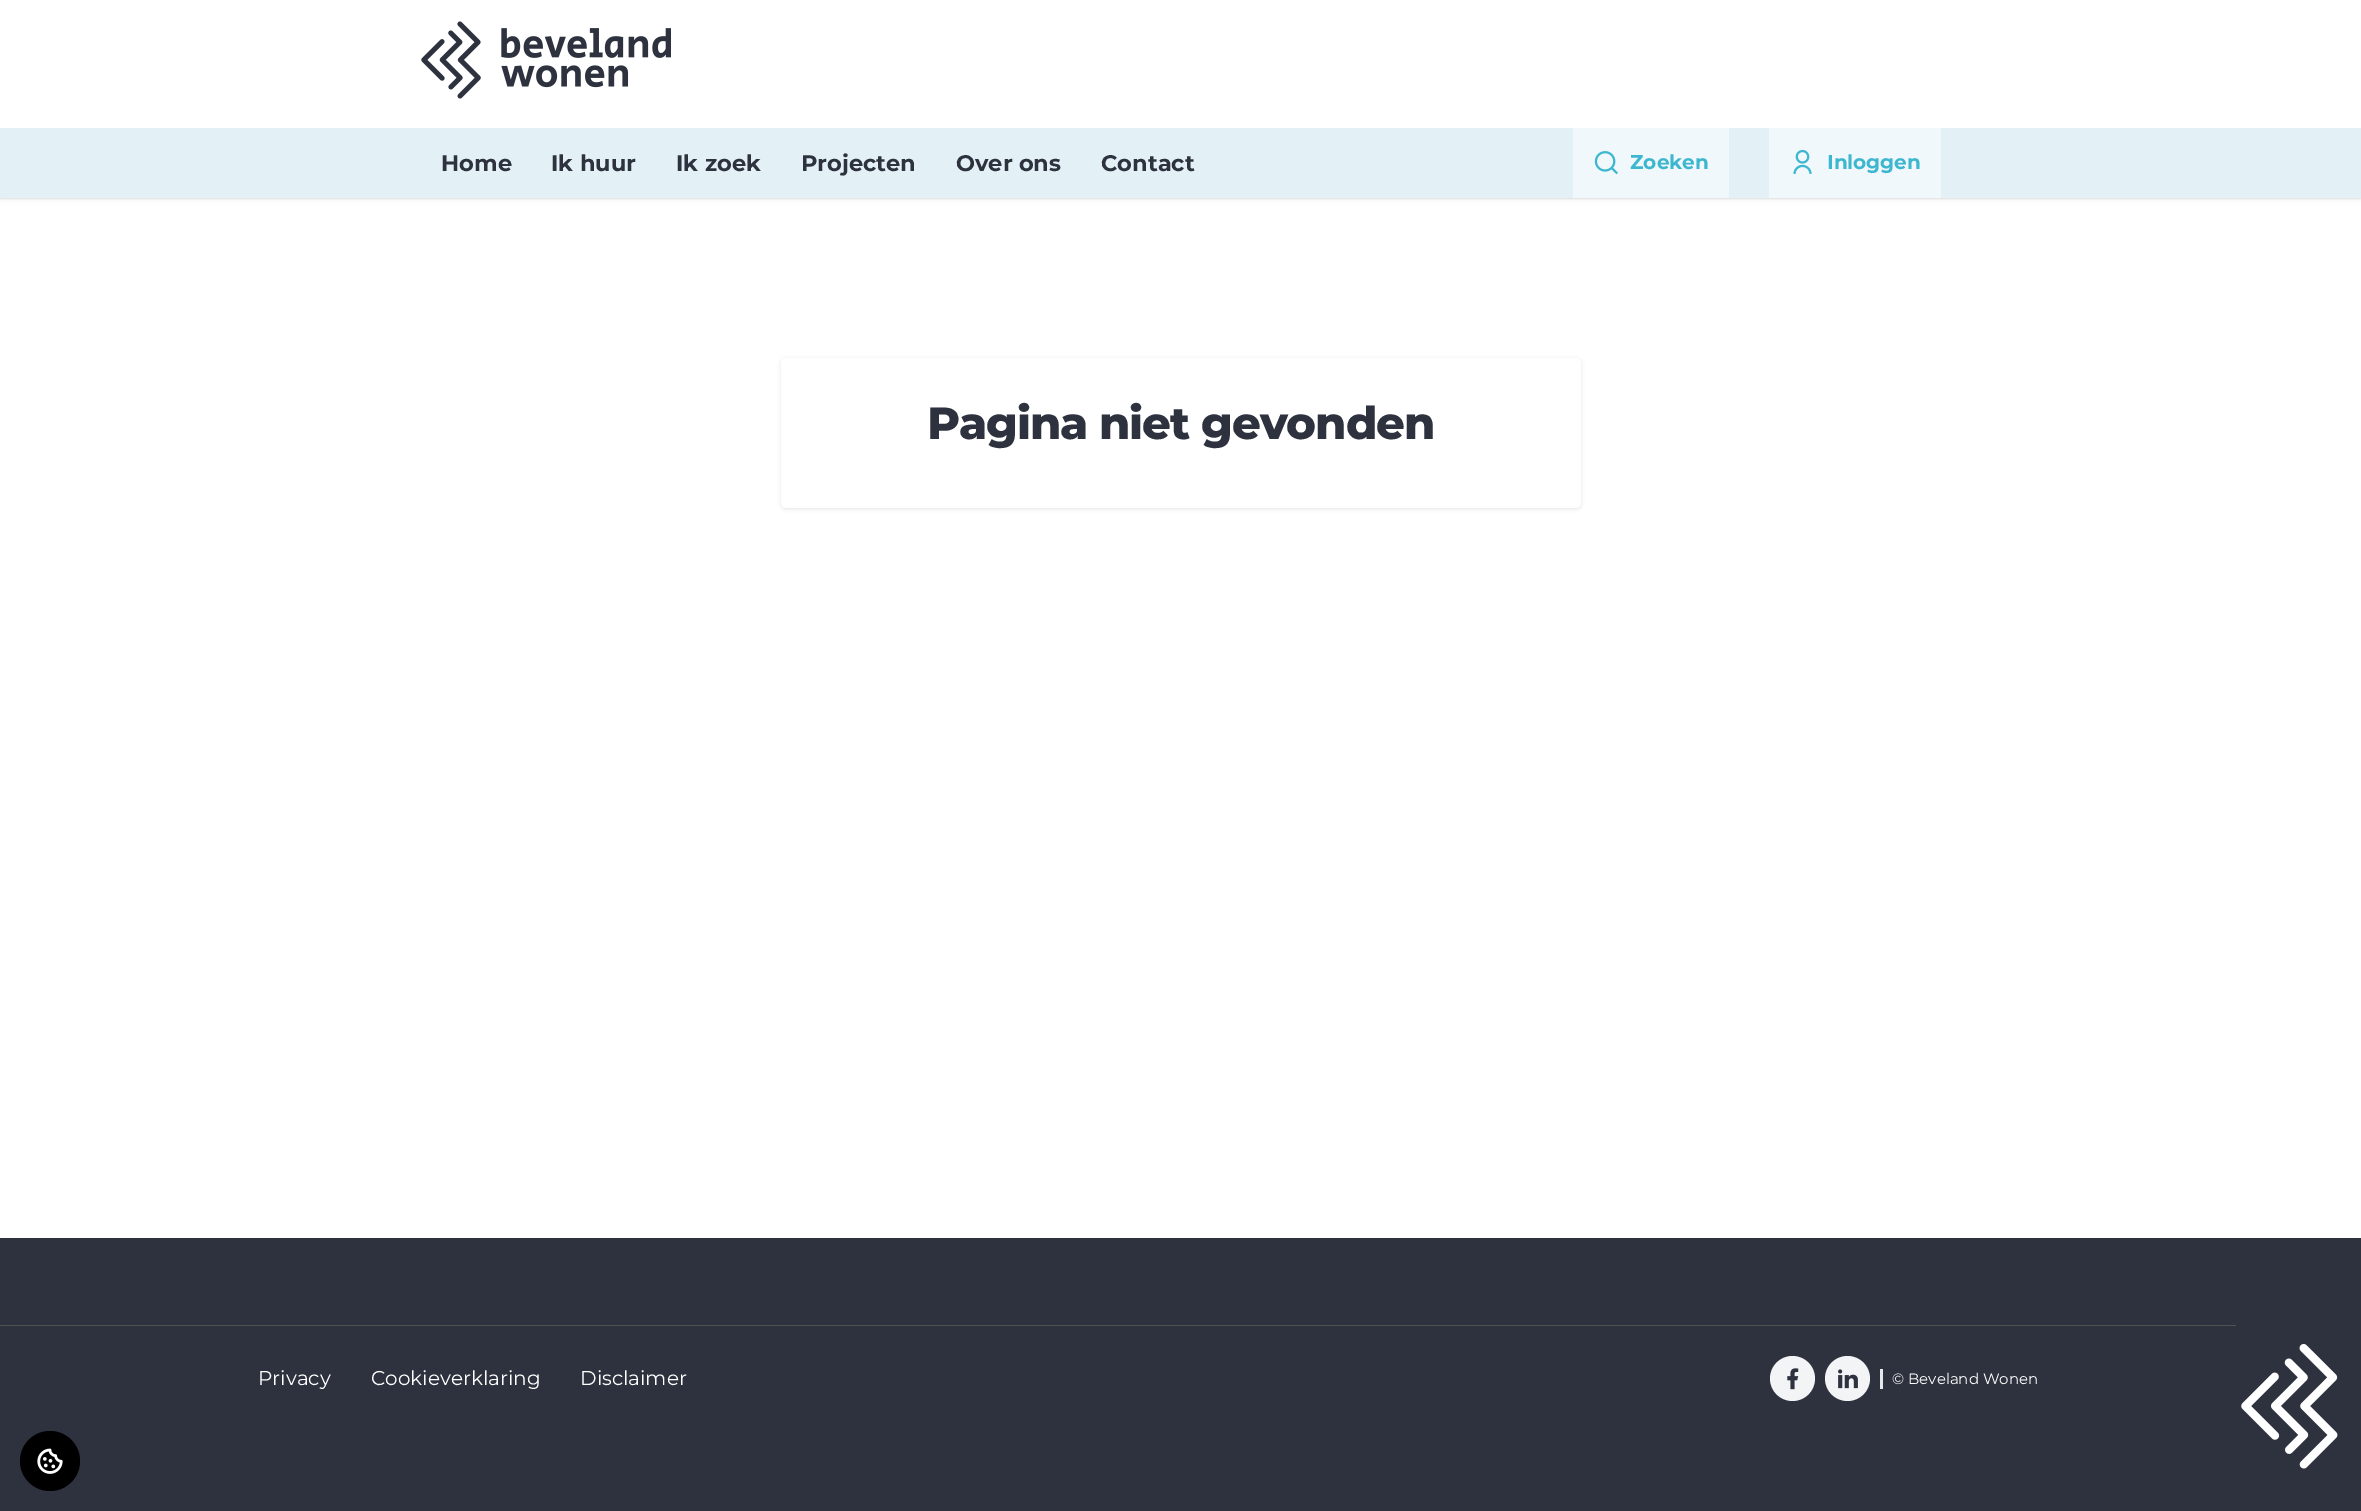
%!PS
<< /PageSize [2361 1511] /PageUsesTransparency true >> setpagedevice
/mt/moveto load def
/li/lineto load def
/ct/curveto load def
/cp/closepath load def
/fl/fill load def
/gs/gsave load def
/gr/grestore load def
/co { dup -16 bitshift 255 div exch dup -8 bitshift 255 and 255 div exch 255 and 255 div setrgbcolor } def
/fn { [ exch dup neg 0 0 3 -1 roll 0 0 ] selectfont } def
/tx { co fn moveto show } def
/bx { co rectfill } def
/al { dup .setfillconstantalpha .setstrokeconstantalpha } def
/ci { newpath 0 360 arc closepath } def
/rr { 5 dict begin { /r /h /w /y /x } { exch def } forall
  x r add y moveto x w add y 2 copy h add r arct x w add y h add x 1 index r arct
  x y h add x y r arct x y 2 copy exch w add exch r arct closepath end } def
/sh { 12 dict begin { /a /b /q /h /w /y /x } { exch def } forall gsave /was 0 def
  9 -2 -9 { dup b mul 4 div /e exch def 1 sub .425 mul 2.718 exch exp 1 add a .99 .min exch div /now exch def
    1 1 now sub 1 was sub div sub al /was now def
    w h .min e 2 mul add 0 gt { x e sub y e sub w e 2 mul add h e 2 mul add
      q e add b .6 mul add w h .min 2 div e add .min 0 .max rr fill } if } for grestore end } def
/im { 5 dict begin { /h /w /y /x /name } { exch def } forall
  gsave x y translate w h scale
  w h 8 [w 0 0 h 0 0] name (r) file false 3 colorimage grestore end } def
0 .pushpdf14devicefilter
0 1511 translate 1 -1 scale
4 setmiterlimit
0 0 2361 1511 16#FFFFFF bx
16#000000 co
1 3 2359 195 0 1 .1 sh
0 1 2361 198 0 2 .1 sh
0 0 2361 128 16#FFFFFF bx
(media/1.raw) 421 21 250 78 im
0 128 2361 70 16#E3F1F7 bx
1573 128 156 70 16#F1F8FB bx
(media/2.raw) 1594 151 24 24 im
1769 128 172 70 16#F1F8FB bx
(media/3.raw) 1793 149 19 25 im
gs
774 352 mt 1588 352 li 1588 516 li 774 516 li cp 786 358 mt 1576 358 li 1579 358 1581 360 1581 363 ct 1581 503 li 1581 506 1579 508 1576 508 ct 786 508 li 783 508 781 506 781 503 ct 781 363 li 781 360 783 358 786 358 ct cp eoclip newpath
16#000000 co
781 359 800 150 5 2 .1 sh
gr
0.8 al
16#FFFFFF co
781 358 800 150 5 rr fl
1 al
0 1238 2361 273 16#2D323E bx
0 1325 2236 1 16#525252 bx
16#F3F4F6 co
1792.5 1378.5 22.5 ci fl
(media/4.raw) 1787 1368 12 22 im
1847.5 1378.5 22.5 ci fl
(media/5.raw) 1838 1369 20 20 im
1880 1369 3 20 16#E5E7EB bx
(media/6.raw) 2241 1344 97 125 im
16#000000 co
50 1461 30 ci fl
(media/7.raw) 37 1448 26 26 im
(Home) 441 171 /Montserrat-Bold 22.5 16#2D323E tx
(Ik huur) 551 171 /Montserrat-Bold 22.5 16#2D323E tx
(Ik zoek) 676 171 /Montserrat-Bold 22.5 16#2D323E tx
(Projecten) 801 171 /Montserrat-Bold 22.5 16#2D323E tx
(Over ons) 956 171 /Montserrat-Bold 22.5 16#2D323E tx
(Contact) 1101 171 /Montserrat-Bold 22.5 16#2D323E tx
(Zoeken) 1630 169 /Montserrat-Bold 20 16#3DB6CF tx
(Inloggen) 1827 169 /Montserrat-Bold 20 16#3DB6CF tx
/Montserrat-ExtraBold 45 fn
16#2D323E co
927 439 mt -1.1 0 (Pagina niet gevonden) ashow
(Privacy) 258 1385 /Montserrat-Regular 20 16#FFFFFF tx
(Cookieverklaring) 371 1385 /Montserrat-Regular 20 16#FFFFFF tx
(Disclaimer) 580 1385 /Montserrat-Regular 20 16#FFFFFF tx
(© Beveland Wonen) 1892 1384 /Montserrat-Regular 15 16#FFFFFF tx
.poppdf14devicefilter showpage
